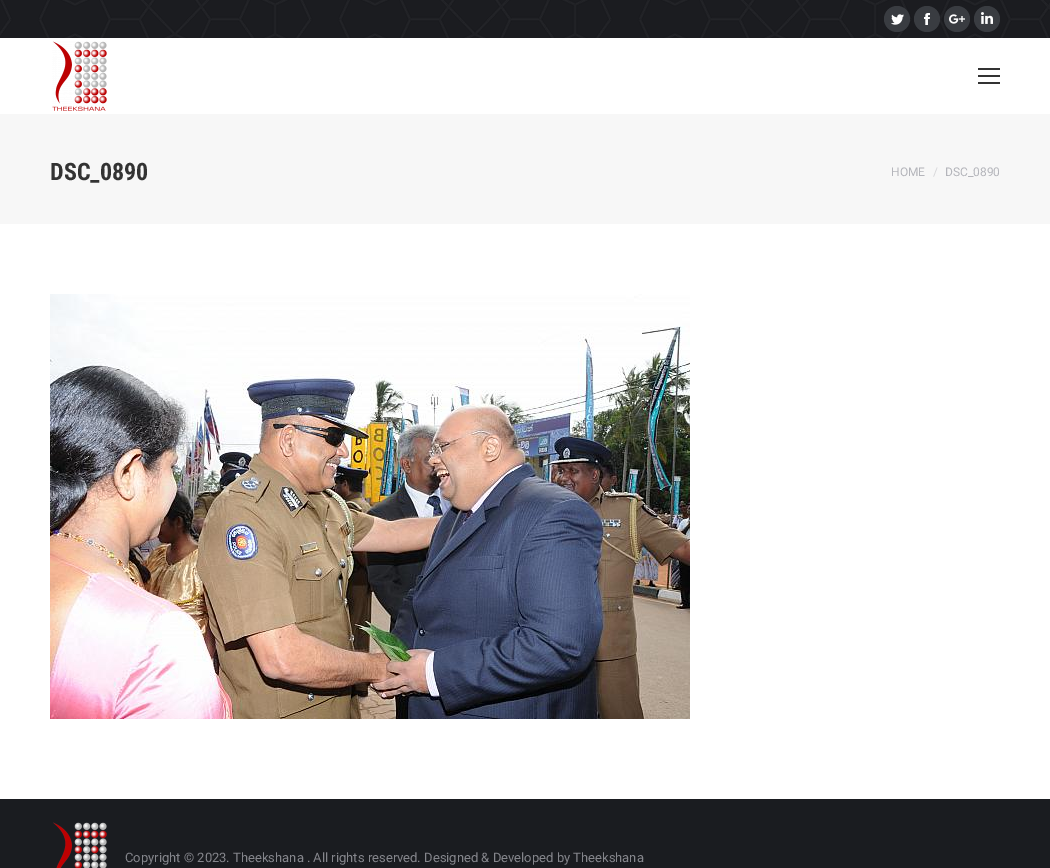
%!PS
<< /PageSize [1050 868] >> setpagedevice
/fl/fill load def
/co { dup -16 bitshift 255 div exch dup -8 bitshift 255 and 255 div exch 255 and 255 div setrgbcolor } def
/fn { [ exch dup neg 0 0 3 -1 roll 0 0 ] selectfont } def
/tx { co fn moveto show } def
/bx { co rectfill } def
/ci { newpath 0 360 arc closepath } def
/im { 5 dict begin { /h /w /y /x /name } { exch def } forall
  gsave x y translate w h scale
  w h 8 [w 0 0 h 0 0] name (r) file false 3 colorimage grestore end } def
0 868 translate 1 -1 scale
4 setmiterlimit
0 0 1050 868 16#FFFFFF bx
0 0 1050 38 16#1A1C20 bx
(media/1.raw) 0 0 1050 38 im
16#393C41 co
897 19 13 ci fl
(media/2.raw) 891 14 13 11 im
927 19 13 ci fl
(media/3.raw) 924 13 6 12 im
957 19 13 ci fl
(media/4.raw) 949 14 16 10 im
987 19 13 ci fl
(media/5.raw) 981 12 12 12 im
(media/6.raw) 52 41 55 70 im
978 75 22 2 16#333333 bx
978 68 22 2 16#333333 bx
978 82 22 2 16#333333 bx
0 114 1050 110 16#F7F7F7 bx
(media/7.raw) 50 294 640 425 im
0 799 1050 69 16#1A1C20 bx
(media/8.raw) 53 822 54 46 im
(DSC_0890) 50 180 /RobotoCondensed-Bold 24 16#333333 tx
(HOME) 891 176 /Roboto-Regular 12 16#B4B5BB tx
(/) 933 176 /Roboto-Regular 12 16#D6D6D9 tx
(DSC_0890) 945 176 /Roboto-Regular 12 16#B4B5BB tx
(Copyright © 2023. Theekshana . All rights reserved. Designed & Developed by Theekshana) 125 862 /Roboto-Regular 13 16#85868C tx
showpage
